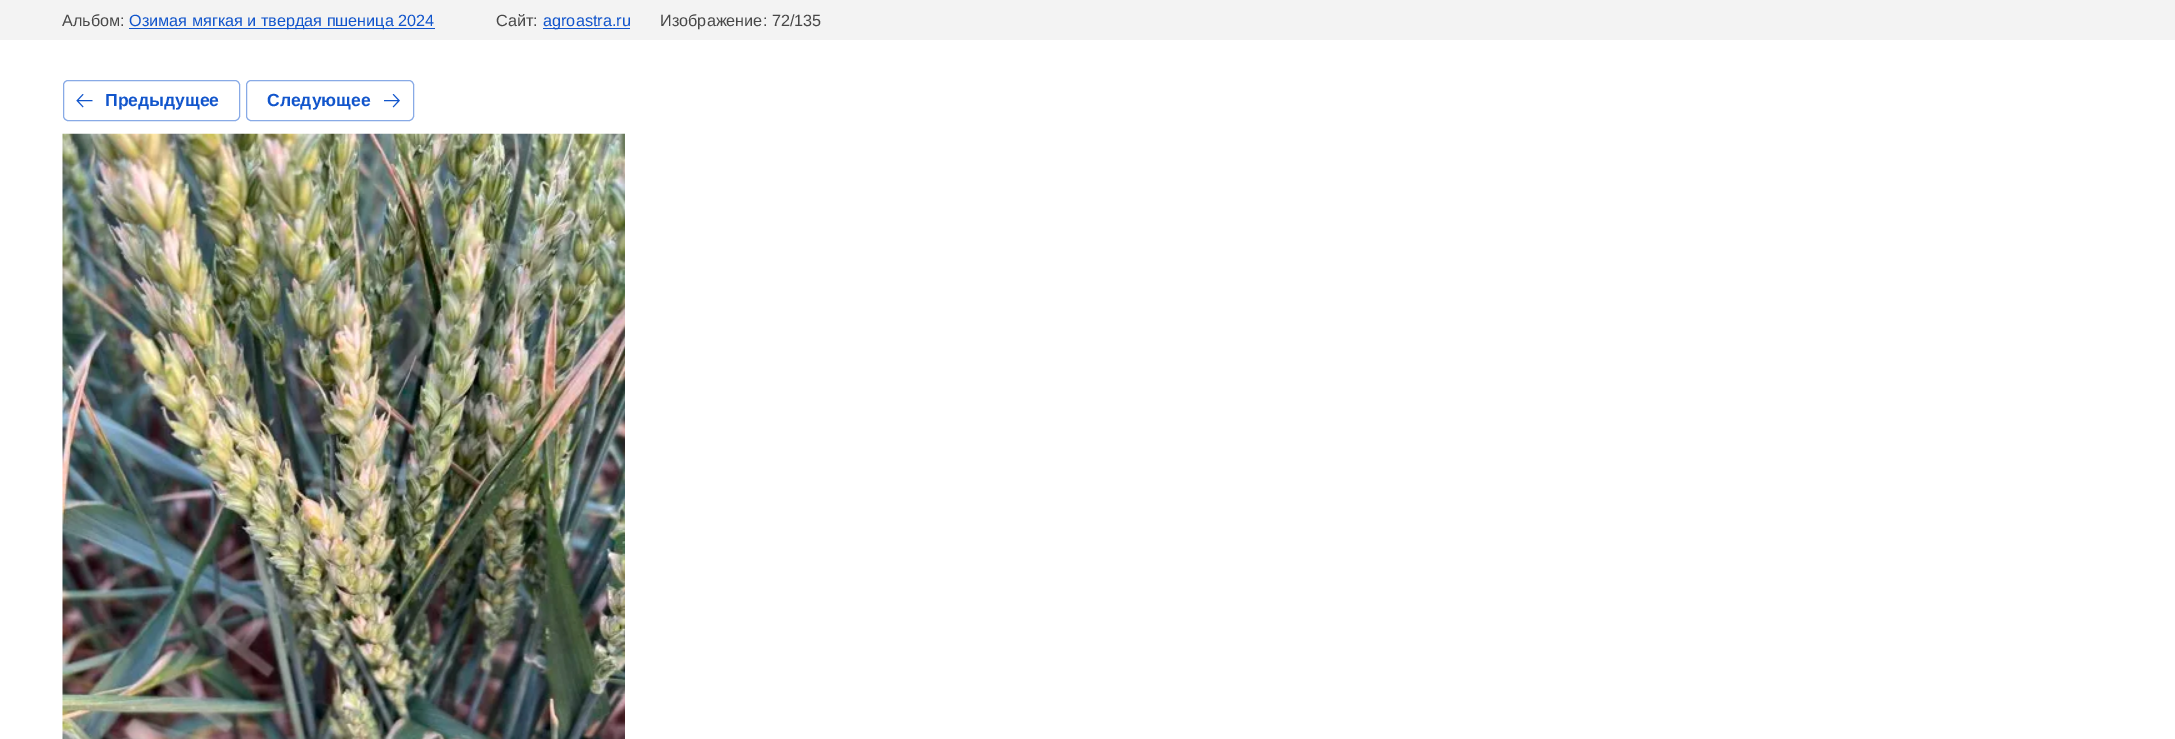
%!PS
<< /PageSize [2175 739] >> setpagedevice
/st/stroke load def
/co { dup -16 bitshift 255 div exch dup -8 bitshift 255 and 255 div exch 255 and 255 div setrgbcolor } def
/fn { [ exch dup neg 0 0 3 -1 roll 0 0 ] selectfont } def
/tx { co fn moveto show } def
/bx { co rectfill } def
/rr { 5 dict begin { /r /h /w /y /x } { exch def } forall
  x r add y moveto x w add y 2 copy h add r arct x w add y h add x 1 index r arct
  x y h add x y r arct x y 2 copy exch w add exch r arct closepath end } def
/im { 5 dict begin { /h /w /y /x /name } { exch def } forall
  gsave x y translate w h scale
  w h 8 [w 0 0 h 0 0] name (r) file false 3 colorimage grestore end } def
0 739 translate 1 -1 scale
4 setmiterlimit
0 0 2175 739 16#FFFFFF bx
0 0 2175 40 16#F3F3F3 bx
129 28 306 1 16#1155CC bx
543 28 87 1 16#1155CC bx
16#88AAE6 co
63.5 80.5 176 40 4.5 rr st
(media/1.raw) 76 94 17 14 im
246.5 80.5 167 40 4.5 rr st
(media/2.raw) 384 94 16 14 im
(media/3.raw) 62 133 563 606 im
(Альбом:) 62 26 /LiberationSans-Regular 16.25 16#484848 tx
(Озимая мягкая и твердая пшеница 2024) 129 26 /LiberationSans-Regular 16.25 16#1155CC tx
(Сайт:) 496 26 /LiberationSans-Regular 16.25 16#484848 tx
(agroastra.ru) 543 26 /LiberationSans-Regular 16.25 16#1155CC tx
(Изображение: 72/135) 660 26 /LiberationSans-Regular 16.25 16#484848 tx
(Предыдущее) 105 106 /LiberationSans-Bold 17.5 16#1155CC tx
(Следующее) 267 106 /LiberationSans-Bold 17.5 16#1155CC tx
showpage
